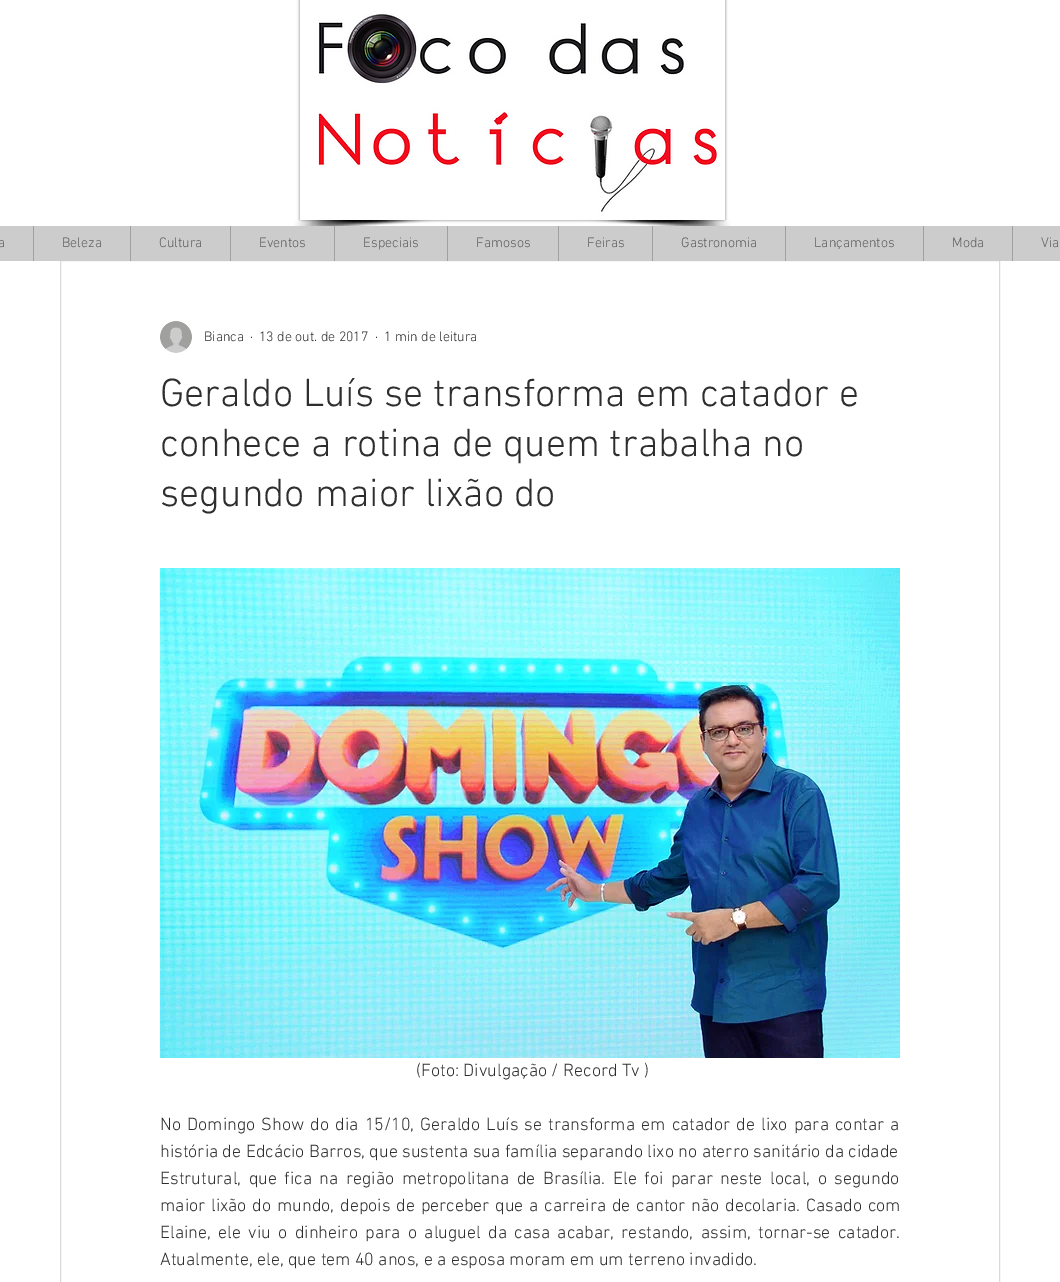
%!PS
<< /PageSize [1060 1282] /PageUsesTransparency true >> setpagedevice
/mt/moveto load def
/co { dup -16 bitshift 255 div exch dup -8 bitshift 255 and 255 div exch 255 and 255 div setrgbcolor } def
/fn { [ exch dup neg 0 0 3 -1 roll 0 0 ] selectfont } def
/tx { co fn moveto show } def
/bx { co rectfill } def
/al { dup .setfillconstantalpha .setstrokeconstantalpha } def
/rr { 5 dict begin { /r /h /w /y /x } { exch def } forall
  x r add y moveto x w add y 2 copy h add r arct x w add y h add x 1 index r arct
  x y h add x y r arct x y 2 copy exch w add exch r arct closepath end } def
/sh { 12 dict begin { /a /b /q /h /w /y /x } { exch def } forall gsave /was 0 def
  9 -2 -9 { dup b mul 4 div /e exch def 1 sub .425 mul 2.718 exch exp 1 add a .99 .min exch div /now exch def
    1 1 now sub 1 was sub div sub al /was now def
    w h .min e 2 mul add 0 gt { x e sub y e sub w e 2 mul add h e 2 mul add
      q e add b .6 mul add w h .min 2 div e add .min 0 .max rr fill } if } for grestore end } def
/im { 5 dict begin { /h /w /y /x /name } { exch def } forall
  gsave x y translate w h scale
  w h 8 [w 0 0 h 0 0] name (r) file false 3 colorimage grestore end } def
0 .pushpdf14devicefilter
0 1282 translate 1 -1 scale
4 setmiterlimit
0 0 1060 1282 16#FFFFFF bx
16#000000 co
300 0 425 220 0 1.5 .5 sh
(media/1.raw) 300 0 425 220 im
(media/2.raw) 294 220 151 6 im
(media/3.raw) 580 220 151 6 im
16#D9D9D9 co
60.5 260.5 939 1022 rectstroke
0 226 1060 35 16#CCCCCC bx
33 226 1 35 16#A0A09F bx
130 226 1 35 16#A0A09F bx
230 226 1 35 16#A0A09F bx
334 226 1 35 16#A0A09F bx
447 226 1 35 16#A0A09F bx
558 226 1 35 16#A0A09F bx
652 226 1 35 16#A0A09F bx
785 226 1 35 16#A0A09F bx
923 226 1 35 16#A0A09F bx
1012 226 1 35 16#A0A09F bx
(media/4.raw) 160 321 32 32 im
(media/5.raw) 160 568 740 490 im
(a) -2 247 /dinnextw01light-Light 14 16#605E5E tx
(Beleza) 62 247 /dinnextw01light-Light 14 16#605E5E tx
(Cultura) 159 247 /dinnextw01light-Light 14 16#605E5E tx
(Eventos) 259 247 /dinnextw01light-Light 14 16#605E5E tx
(Especiais) 363 247 /dinnextw01light-Light 14 16#605E5E tx
(Famosos) 476 247 /dinnextw01light-Light 14 16#605E5E tx
(Feiras) 587 247 /dinnextw01light-Light 14 16#605E5E tx
(Gastronomia) 681 247 /dinnextw01light-Light 14 16#605E5E tx
(Lançamentos) 814 247 /dinnextw01light-Light 14 16#605E5E tx
(Moda) 952 247 /dinnextw01light-Light 14 16#605E5E tx
(Via) 1041 247 /dinnextw01light-Light 14 16#605E5E tx
(Bianca) 204 341 /dinnextw01light-Light 14 16#2F2E2E tx
(·) 250 341 /dinnextw01light-Light 14 16#2F2E2E tx
(13 de out. de 2017) 259 341 /dinnextw01light-Light 14 16#2F2E2E tx
(·) 375 341 /dinnextw01light-Light 14 16#2F2E2E tx
(1 min de leitura) 384 341 /dinnextw01light-Light 14 16#2F2E2E tx
(Geraldo Luís se transforma em catador e) 160 406 /dinnextw01light-Light 40 16#2F2E2E tx
(conhece a rotina de quem trabalha no) 160 456 /dinnextw01light-Light 40 16#2F2E2E tx
(segundo maior lixão do) 160 506 /dinnextw01light-Light 40 16#2F2E2E tx
(\(Foto: Divulgação / Record Tv \)) 416 1076 /dinnextw01light-Light 18 16#2F2E2E tx
160 1130 mt 1.75 0 32 (No Domingo Show do dia 15/10, Geraldo Luís se transforma em catador de lixo para contar a) widthshow
(história de Edcácio Barros, que sustenta sua família separando lixo no aterro sanitário da cidade) 160 1157 /dinnextw01light-Light 18 16#2F2E2E tx
160 1184 mt 3.1 0 32 (Estrutural, que fica na região metropolitana de Brasília. Ele foi parar neste local, o segundo) widthshow
160 1211 mt 1.4 0 32 (maior lixão do mundo, depois de perceber que a carreira de cantor não decolaria. Casado com) widthshow
160 1238 mt 3 0 32 (Elaine, ele viu o dinheiro para o aluguel da casa acabar, restando, assim, tornar-se catador.) widthshow
(Atualmente, ele, que tem 40 anos, e a esposa moram em um terreno invadido.) 160 1265 /dinnextw01light-Light 18 16#2F2E2E tx
.poppdf14devicefilter showpage
